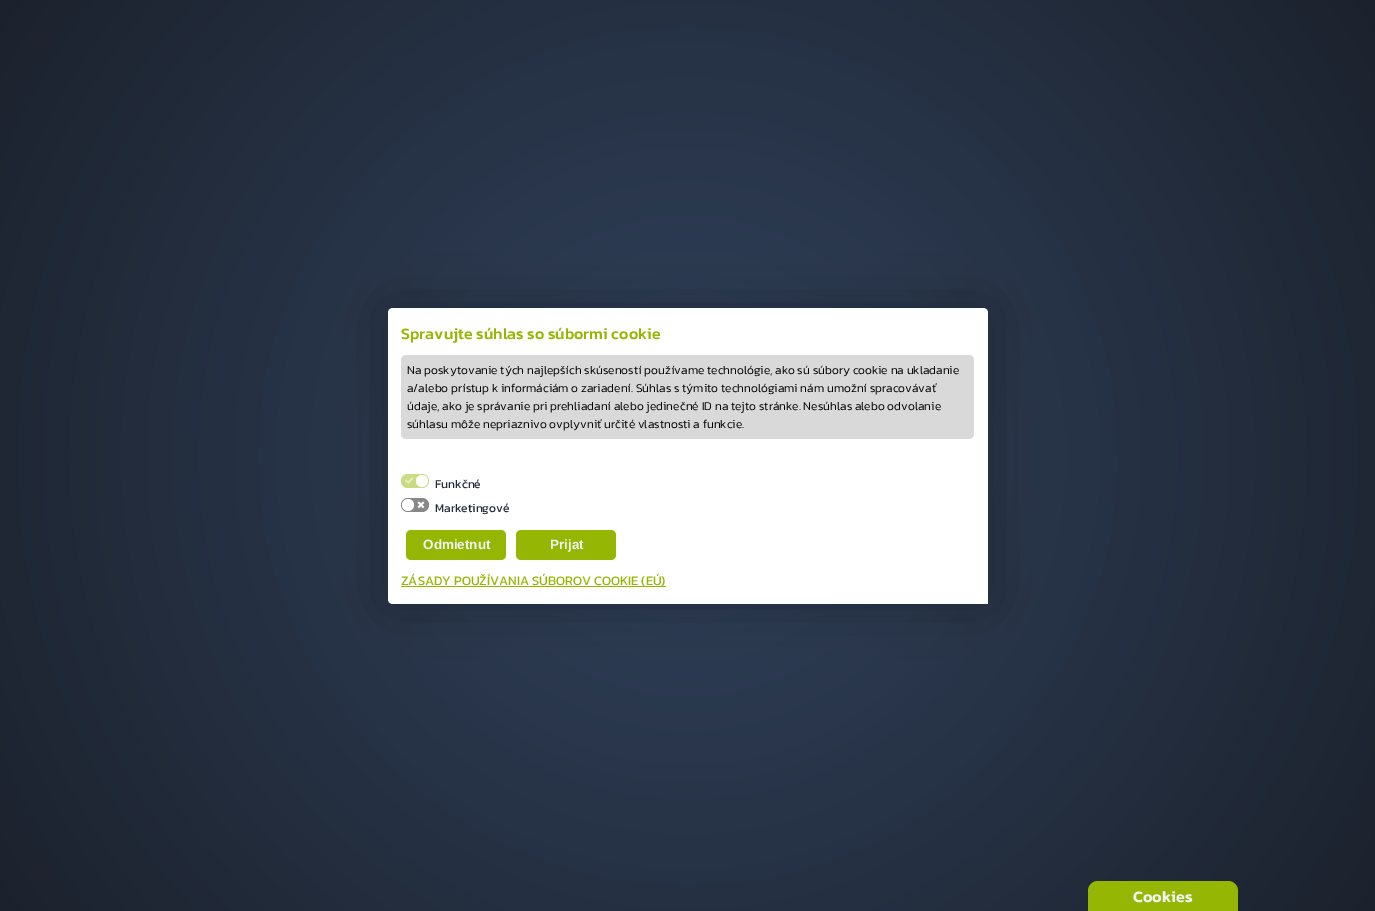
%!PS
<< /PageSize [1375 911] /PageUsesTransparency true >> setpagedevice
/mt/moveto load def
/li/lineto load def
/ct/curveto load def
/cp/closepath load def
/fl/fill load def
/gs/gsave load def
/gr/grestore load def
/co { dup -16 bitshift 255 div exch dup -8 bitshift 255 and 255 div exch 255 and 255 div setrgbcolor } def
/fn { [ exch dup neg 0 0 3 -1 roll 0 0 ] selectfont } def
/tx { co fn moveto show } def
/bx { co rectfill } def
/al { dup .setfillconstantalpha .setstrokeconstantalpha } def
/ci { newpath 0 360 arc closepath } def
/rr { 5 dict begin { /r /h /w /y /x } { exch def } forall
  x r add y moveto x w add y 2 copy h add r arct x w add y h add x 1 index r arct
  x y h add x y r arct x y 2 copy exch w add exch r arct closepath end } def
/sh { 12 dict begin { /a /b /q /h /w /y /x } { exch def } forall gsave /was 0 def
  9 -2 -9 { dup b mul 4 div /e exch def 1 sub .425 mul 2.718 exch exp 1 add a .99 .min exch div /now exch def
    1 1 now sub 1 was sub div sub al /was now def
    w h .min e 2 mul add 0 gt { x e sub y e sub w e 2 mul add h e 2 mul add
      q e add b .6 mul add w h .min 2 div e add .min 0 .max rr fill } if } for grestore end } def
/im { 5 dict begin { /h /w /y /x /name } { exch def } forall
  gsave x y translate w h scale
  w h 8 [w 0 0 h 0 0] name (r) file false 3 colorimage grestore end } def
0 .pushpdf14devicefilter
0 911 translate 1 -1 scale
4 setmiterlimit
0 0 1375 911 16#FFFFFF bx
gs 0 0 mt 1375 0 li 1375 911 li 0 911 li cp clip newpath 688 456 translate 825 825 scale
<< /ShadingType 3 /ColorSpace /DeviceRGB /Coords [0 0 0 0 0 1] /Extend [true true] /Function << /FunctionType 2 /Domain [0 1] /C0 [.192 .259 .365] /C1 [.11 .133 .176] /N 1 >> >> shfill gr
16#000000 co
388 308 600 296 5 25 .3 sh
16#FFFFFF co
393 308 mt 983 308 li 986 308 988 310 988 313 ct 988 604 li 393 604 li 390 604 388 602 388 599 ct 388 313 li 388 310 390 308 393 308 ct cp fl
16#D9D9D9 co
401 355 573 84 5 rr fl
16#CADB82 co
401 474 28 14 7 rr fl
(media/1.raw) 404 477 10 7 im
16#FFFFFF co
422 481 6 ci fl
16#888888 co
401 498 28 14 7 rr fl
(media/2.raw) 417 501 8 8 im
16#FFFFFF co
408 505 6 ci fl
16#95B704 co
406 530 100 30 5 rr fl
516 530 100 30 5 rr fl
401 586 265 1 16#95B704 bx
1098 881 mt 1228 881 li 1233.5 881 1238 885.5 1238 891 ct 1238 911 li 1088 911 li 1088 891 li 1088 885.5 1092.5 881 1098 881 ct cp fl
(Spravujte súhlas so súbormi cookie) 401 339 /Kanit-Medium 16 16#95B704 tx
(Na poskytovanie tých najlepších skúseností používame technológie, ako sú súbory cookie na ukladanie) 407 374 /Kanit-Light 12 16#000000 tx
(a/alebo prístup k informáciám o zariadení. Súhlas s týmito technológiami nám umožní spracovávať) 407 392 /Kanit-Light 12 16#000000 tx
(údaje, ako je správanie pri prehliadaní alebo jedinečné ID na tejto stránke. Nesúhlas alebo odvolanie) 407 410 /Kanit-Light 12 16#000000 tx
(súhlasu môže nepriaznivo ovplyvniť určité vlastnosti a funkcie.) 407 428 /Kanit-Light 12 16#000000 tx
(Funkčné) 435 488 /Kanit-Regular 12 16#232C3B tx
(Marketingové) 435 512 /Kanit-Regular 12 16#232C3B tx
(Odmietnut) 423 549 /LiberationSans-Bold 13.5 16#F2F2F2 tx
(Prijat) 550 549 /LiberationSans-Bold 13.5 16#F2F2F2 tx
(ZÁSADY POUŽÍVANIA SÚBOROV COOKIE \(EÚ\)) 401 585 /Kanit-Regular 13 16#95B704 tx
(Cookies) 1133 902 /Kanit-SemiBold 16 16#F2F2F2 tx
.poppdf14devicefilter showpage
